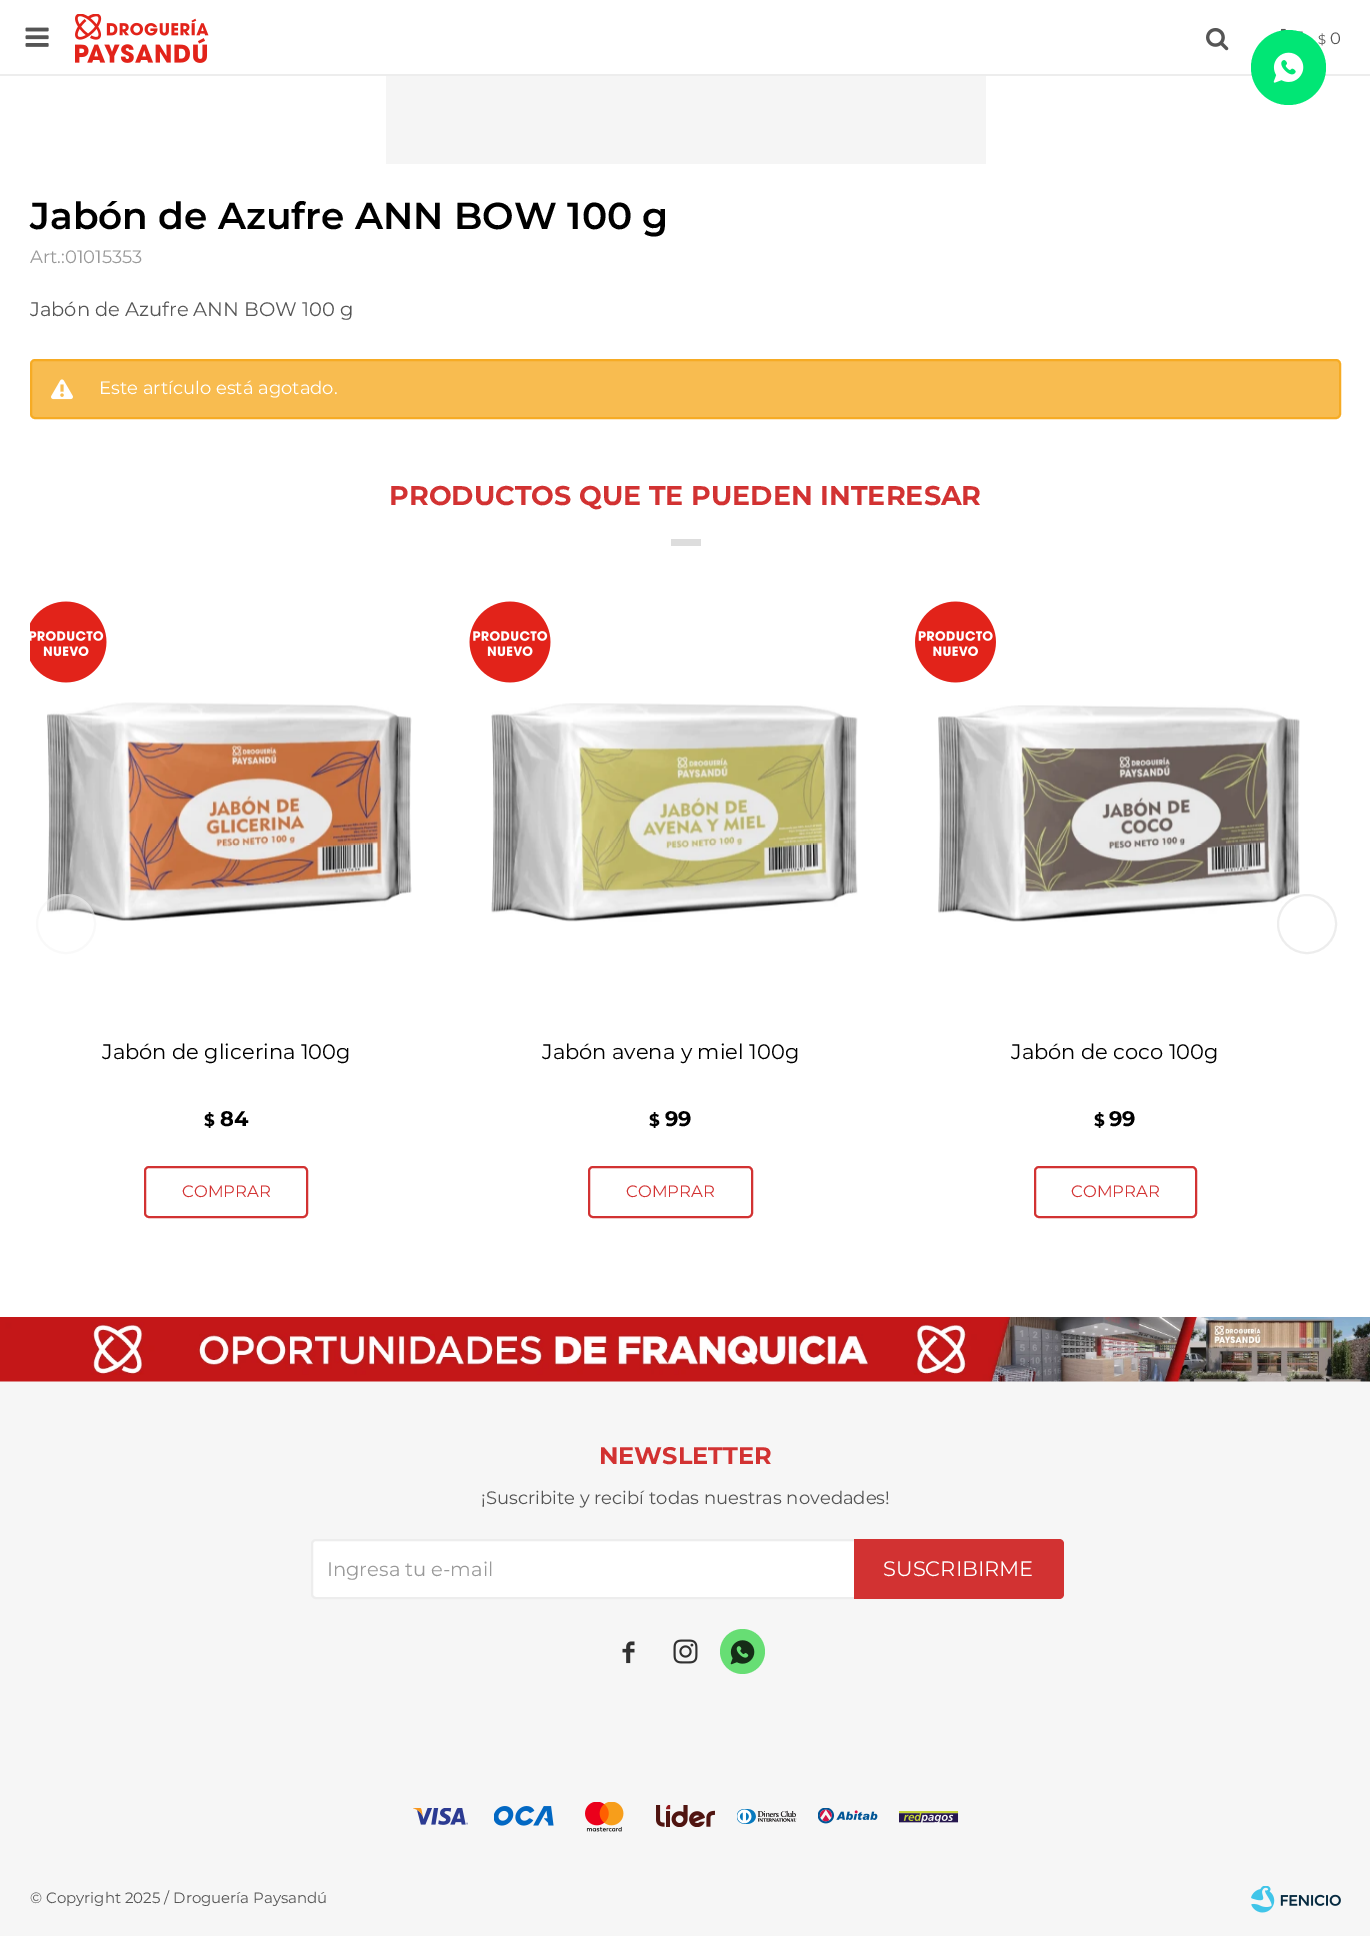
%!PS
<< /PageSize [1370 1936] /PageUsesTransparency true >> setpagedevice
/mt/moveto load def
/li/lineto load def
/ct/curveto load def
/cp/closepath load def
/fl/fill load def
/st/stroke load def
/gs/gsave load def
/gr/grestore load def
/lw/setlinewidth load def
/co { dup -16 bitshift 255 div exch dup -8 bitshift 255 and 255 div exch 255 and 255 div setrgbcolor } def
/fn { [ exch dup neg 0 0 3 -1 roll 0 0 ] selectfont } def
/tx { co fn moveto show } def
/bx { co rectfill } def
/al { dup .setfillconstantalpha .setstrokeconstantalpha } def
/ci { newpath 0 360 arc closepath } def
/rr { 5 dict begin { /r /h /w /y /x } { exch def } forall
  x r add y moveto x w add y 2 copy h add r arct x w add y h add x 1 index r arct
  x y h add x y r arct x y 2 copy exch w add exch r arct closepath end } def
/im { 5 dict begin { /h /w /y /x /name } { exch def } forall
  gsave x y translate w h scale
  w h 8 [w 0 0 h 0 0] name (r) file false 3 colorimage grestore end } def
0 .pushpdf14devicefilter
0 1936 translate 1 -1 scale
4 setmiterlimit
0 0 1370 1936 16#FFFFFF bx
(media/2.raw) 25 27 24 20 im
(media/3.raw) 75 14 134 49 im
(media/4.raw) 1206 28 23 23 im
(media/5.raw) 1281 28 22 5 im
0 74 1370 2 16#EDEDED bx
386 76 600 88 16#F5F5F5 bx
16#F8BC50 co
31 360 1309 58 4 rr gs fl gr
16#F6AB24 co
2 lw
st
(media/6.raw) 51 379 22 21 im
671 539 30 7 16#DDDDDD bx
(media/8.raw) 47 702 365 219 im
0.35 al
16#FFFFFF co
66 924 30 ci fl
16#EDEDED co
66 924 29 ci st
1 al
(media/12.raw) 938 705 362 217 im
1307 924 29 ci st
(media/7.raw) 30 601 77 82 im
16#D23232 co
145 1167 162 50 4 rr st
(media/9.raw) 469 601 82 82 im
(media/10.raw) 491 703 367 219 im
589 1167 163 50 4 rr st
(media/11.raw) 915 601 81 82 im
1035 1167 161 50 4 rr st
0 1381 1370 555 16#F6F6F6 bx
(media/13.raw) 0 1317 1370 65 im
16#FFFFFF co
312 1540 748 58 4 rr gs fl gr
16#EDEDED co
st
16#D23232 co
854 1539 mt 1059 1539 li 1062 1539 1064 1541 1064 1544 ct 1064 1594 li 1064 1597 1062 1599 1059 1599 ct 854 1599 li cp fl
(media/14.raw) 622 1641 13 23 im
(media/15.raw) 673 1639 25 25 im
16#67DE74 co
742.5 1651.5 22.5 ci fl
(media/16.raw) 730 1640 25 25 im
(media/17.raw) 413 1808 55 17 im
(media/18.raw) 494 1806 60 20 im
(media/19.raw) 585 1802 39 30 im
(media/20.raw) 656 1805 59 22 im
(media/21.raw) 737 1809 60 15 im
(media/22.raw) 818 1808 60 16 im
(media/23.raw) 899 1811 60 12 im
(media/24.raw) 1251 1886 90 27 im
($) 1318 44 /Montserrat-Regular 13 16#555555 tx
16#01E675 co
1288.5 67.5 37.5 ci fl
(media/1.raw) 1273 52 31 31 im
(0) 1330 44 /Montserrat-Regular 16.5 16#555555 tx
(Jabón de Azufre ANN BOW 100 g) 30 229 /Montserrat-SemiBold 37.5 16#000000 tx
(Art.:01015353) 30 263 /Montserrat-Regular 18 16#999999 tx
(Jabón de Azufre ANN BOW 100 g) 30 316 /Montserrat-Regular 19.5 16#555555 tx
(Este artículo está agotado.) 99 394 /Montserrat-Regular 18 16#FFFFFF tx
(PRODUCTOS QUE TE PUEDEN INTERESAR) 389 505 /Montserrat-Bold 27 16#D23232 tx
(Jabón de glicerina 100g) 102 1059 /Montserrat-Regular 21 16#000000 tx
($) 204 1126 /Montserrat-Bold 17 16#000000 tx
(84) 220 1126 /Montserrat-Bold 21 16#000000 tx
(COMPRAR) 182 1197 /Montserrat-Regular 16.5 16#D23232 tx
(Jabón avena y miel 100g) 542 1059 /Montserrat-Regular 21 16#000000 tx
($) 649 1126 /Montserrat-Bold 17 16#000000 tx
(99) 665 1126 /Montserrat-Bold 21 16#000000 tx
(COMPRAR) 626 1197 /Montserrat-Regular 16.5 16#D23232 tx
(Jabón de coco 100g) 1011 1059 /Montserrat-Regular 21 16#000000 tx
($) 1094 1126 /Montserrat-Bold 17 16#000000 tx
(99) 1109 1126 /Montserrat-Bold 21 16#000000 tx
(COMPRAR) 1071 1197 /Montserrat-Regular 16.5 16#D23232 tx
(NEWSLETTER) 599 1464 /Montserrat-Bold 24 16#D23232 tx
(¡Suscribite y recibí todas nuestras novedades!) 481 1504 /Montserrat-Regular 18 16#555555 tx
(Ingresa tu e-mail) 327 1576 /Montserrat-Regular 19.5 16#999999 tx
(SUSCRIBIRME) 883 1576 /Montserrat-Regular 21 16#FFFFFF tx
(© Copyright 2025 / Droguería Paysandú) 30 1903 /Montserrat-Regular 15 16#555555 tx
.poppdf14devicefilter showpage
